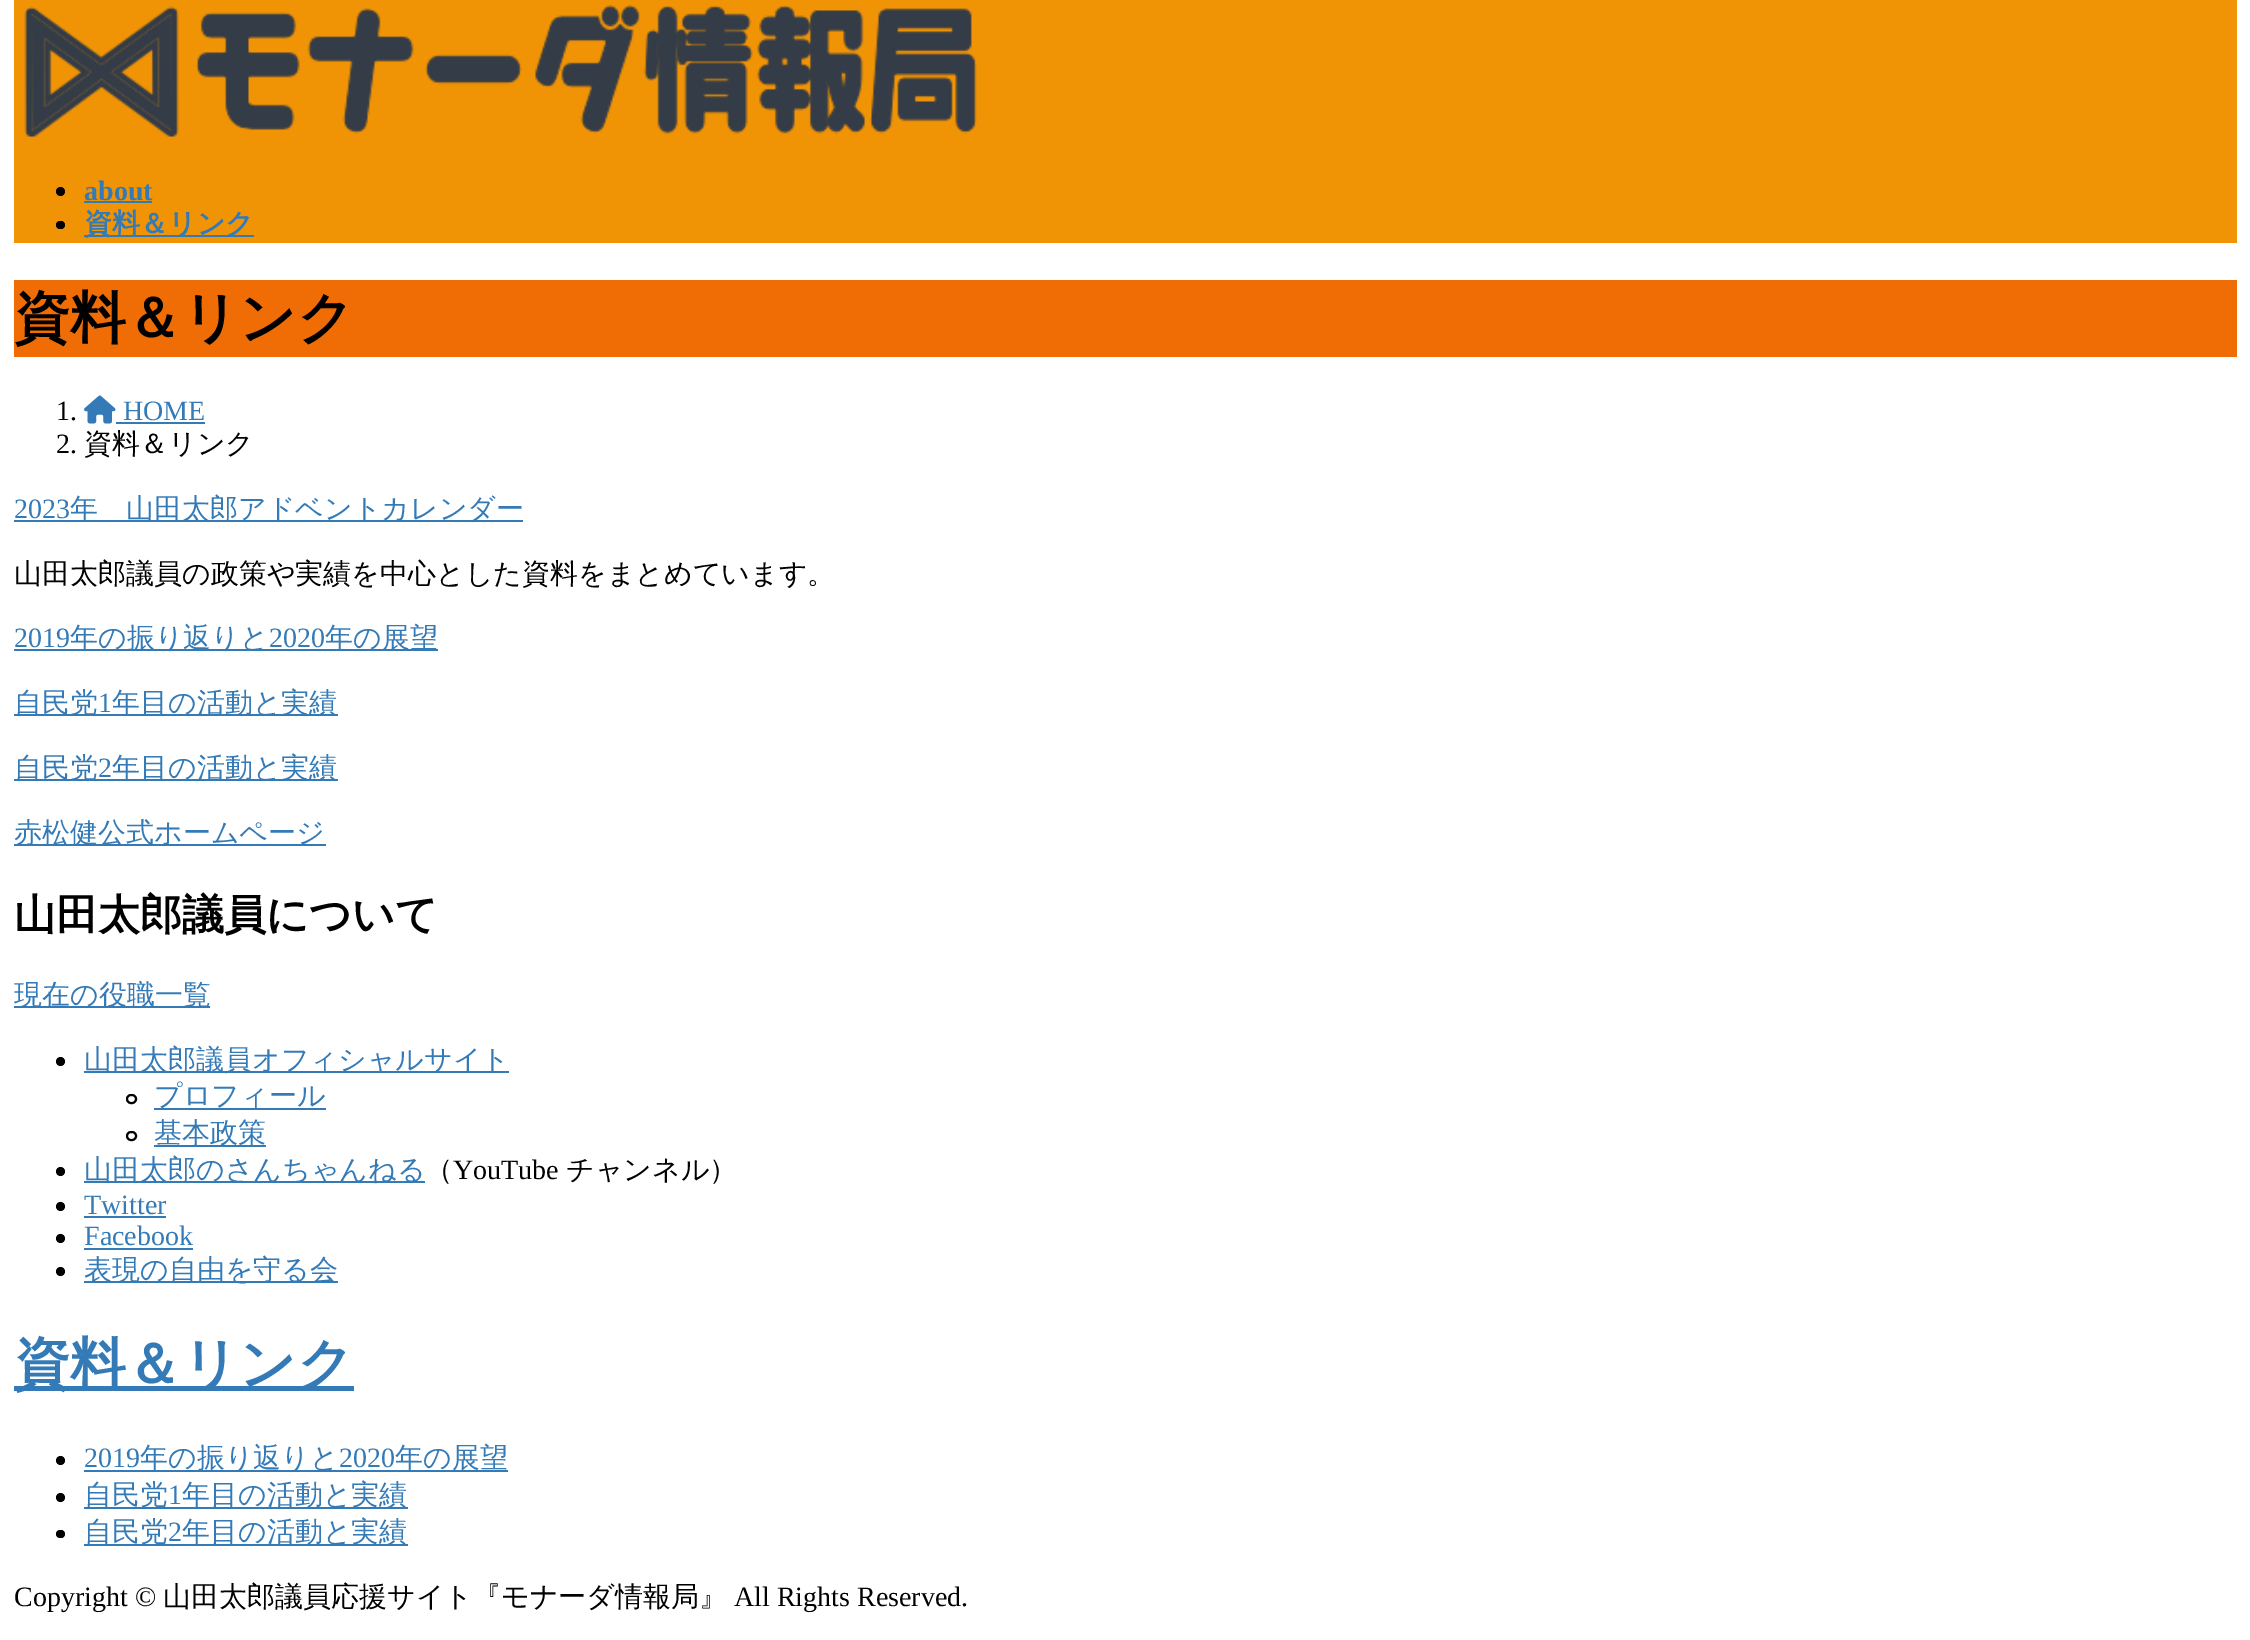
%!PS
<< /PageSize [2250 1640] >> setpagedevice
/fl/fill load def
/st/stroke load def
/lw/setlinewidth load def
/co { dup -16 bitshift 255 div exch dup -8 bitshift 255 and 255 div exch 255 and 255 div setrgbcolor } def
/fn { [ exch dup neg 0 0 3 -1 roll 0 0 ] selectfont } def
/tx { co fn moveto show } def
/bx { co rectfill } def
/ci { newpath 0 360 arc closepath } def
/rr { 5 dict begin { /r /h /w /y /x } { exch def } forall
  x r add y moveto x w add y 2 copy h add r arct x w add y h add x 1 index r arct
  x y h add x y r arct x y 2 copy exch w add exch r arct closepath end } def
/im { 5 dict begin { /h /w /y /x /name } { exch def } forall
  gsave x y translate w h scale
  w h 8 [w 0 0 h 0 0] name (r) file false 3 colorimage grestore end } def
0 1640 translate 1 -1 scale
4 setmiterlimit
0 0 2250 1640 16#FFFFFF bx
14 0 2223 243 16#F09305 bx
(media/1.raw) 24 5 953 133 im
16#000000 co
60.5 191.5 4.5 ci fl
84 201 68 2 16#337AB7 bx
16#000000 co
56 221 9 8 4 rr fl
84 235 170 2 16#337AB7 bx
14 280 2223 77 16#F06C05 bx
(media/2.raw) 84 395 32 29 im
116 422 89 2 16#337AB7 bx
14 520 509 2 16#337AB7 bx
14 649 424 2 16#337AB7 bx
14 714 324 2 16#337AB7 bx
14 779 324 2 16#337AB7 bx
14 844 312 2 16#337AB7 bx
14 1006 196 2 16#337AB7 bx
16#000000 co
60.5 1061.5 4.5 ci fl
84 1071 425 2 16#337AB7 bx
16#000000 co
2 lw
127 1095 9 8 4 rr st
154 1108 172 2 16#337AB7 bx
16#000000 co
127 1132 9 8 4 rr st
154 1145 112 2 16#337AB7 bx
16#000000 co
60.5 1171.5 4.5 ci fl
84 1181 341 2 16#337AB7 bx
16#000000 co
60.5 1206.5 4.5 ci fl
84 1216 82 2 16#337AB7 bx
16#000000 co
60.5 1238.5 4.5 ci fl
84 1248 109 2 16#337AB7 bx
16#000000 co
60.5 1271.5 4.5 ci fl
84 1281 254 2 16#337AB7 bx
14 1386 340 5 16#337AB7 bx
16#000000 co
60.5 1460.5 4.5 ci fl
84 1470 424 2 16#337AB7 bx
16#000000 co
60.5 1497.5 4.5 ci fl
84 1507 324 2 16#337AB7 bx
16#000000 co
56 1530 9 8 4 rr fl
84 1544 324 2 16#337AB7 bx
(about) 84 200 /LiberationSerif-Bold 28 16#337AB7 tx
(資料＆リンク) 84 233 /WenQuanYiZenHei-Bold 28 16#337AB7 tx
(資料＆リンク) 14 337 /WenQuanYiZenHei-Bold 56 16#000000 tx
(1.) 56 420 /LiberationSerif-Regular 28 16#000000 tx
(HOME) 123 420 /LiberationSerif-Regular 28 16#337AB7 tx
(2.) 56 453 /LiberationSerif-Regular 28 16#000000 tx
(資料＆リンク) 84 453 /WenQuanYiZenHei-Medium 28 16#000000 tx
(2023) 14 518 /LiberationSerif-Regular 28 16#337AB7 tx
(年　山田太郎アドベントカレンダー) 70 518 /WenQuanYiZenHei-Medium 28 16#337AB7 tx
(山田太郎議員の政策や実績を中心とした資料をまとめています。) 14 583 /WenQuanYiZenHei-Medium 28 16#000000 tx
(2019) 14 647 /LiberationSerif-Regular 28 16#337AB7 tx
(年の振り返りと) 70 647 /WenQuanYiZenHei-Medium 28 16#337AB7 tx
(2020) 269 647 /LiberationSerif-Regular 28 16#337AB7 tx
(年の展望) 325 647 /WenQuanYiZenHei-Medium 28 16#337AB7 tx
(自民党) 14 712 /WenQuanYiZenHei-Medium 28 16#337AB7 tx
(1) 98 712 /LiberationSerif-Regular 28 16#337AB7 tx
(年目の活動と実績) 112 712 /WenQuanYiZenHei-Medium 28 16#337AB7 tx
(自民党) 14 777 /WenQuanYiZenHei-Medium 28 16#337AB7 tx
(2) 98 777 /LiberationSerif-Regular 28 16#337AB7 tx
(年目の活動と実績) 112 777 /WenQuanYiZenHei-Medium 28 16#337AB7 tx
(赤松健公式ホームページ) 14 842 /WenQuanYiZenHei-Medium 28 16#337AB7 tx
(山田太郎議員について) 14 929 /WenQuanYiZenHei-Bold 42 16#000000 tx
(現在の役職一覧) 14 1004 /WenQuanYiZenHei-Medium 28 16#337AB7 tx
(山田太郎議員オフィシャルサイト) 84 1069 /WenQuanYiZenHei-Medium 28 16#337AB7 tx
(プロフィール) 154 1105 /WenQuanYiZenHei-Medium 28 16#337AB7 tx
(基本政策) 154 1142 /WenQuanYiZenHei-Medium 28 16#337AB7 tx
(山田太郎のさんちゃんねる) 84 1179 /WenQuanYiZenHei-Medium 28 16#337AB7 tx
(（) 425 1179 /WenQuanYiZenHei-Medium 28 16#000000 tx
(YouTube) 453 1179 /LiberationSerif-Regular 28 16#000000 tx
(チャンネル）) 566 1179 /WenQuanYiZenHei-Medium 28 16#000000 tx
(Twitter) 84 1214 /LiberationSerif-Regular 28 16#337AB7 tx
(Facebook) 84 1245 /LiberationSerif-Regular 28 16#337AB7 tx
(表現の自由を守る会) 84 1279 /WenQuanYiZenHei-Medium 28 16#337AB7 tx
(資料＆リンク) 14 1383 /WenQuanYiZenHei-Bold 56 16#337AB7 tx
(2019) 84 1467 /LiberationSerif-Regular 28 16#337AB7 tx
(年の振り返りと) 140 1467 /WenQuanYiZenHei-Medium 28 16#337AB7 tx
(2020) 339 1467 /LiberationSerif-Regular 28 16#337AB7 tx
(年の展望) 395 1467 /WenQuanYiZenHei-Medium 28 16#337AB7 tx
(自民党) 84 1504 /WenQuanYiZenHei-Medium 28 16#337AB7 tx
(1) 168 1504 /LiberationSerif-Regular 28 16#337AB7 tx
(年目の活動と実績) 182 1504 /WenQuanYiZenHei-Medium 28 16#337AB7 tx
(自民党) 84 1541 /WenQuanYiZenHei-Medium 28 16#337AB7 tx
(2) 168 1541 /LiberationSerif-Regular 28 16#337AB7 tx
(年目の活動と実績) 182 1541 /WenQuanYiZenHei-Medium 28 16#337AB7 tx
(Copyright ©) 14 1606 /LiberationSerif-Regular 28 16#000000 tx
(山田太郎議員応援サイト『モナーダ情報局』) 163 1606 /WenQuanYiZenHei-Medium 28 16#000000 tx
(All Rights Reserved.) 734 1606 /LiberationSerif-Regular 28 16#000000 tx
showpage
